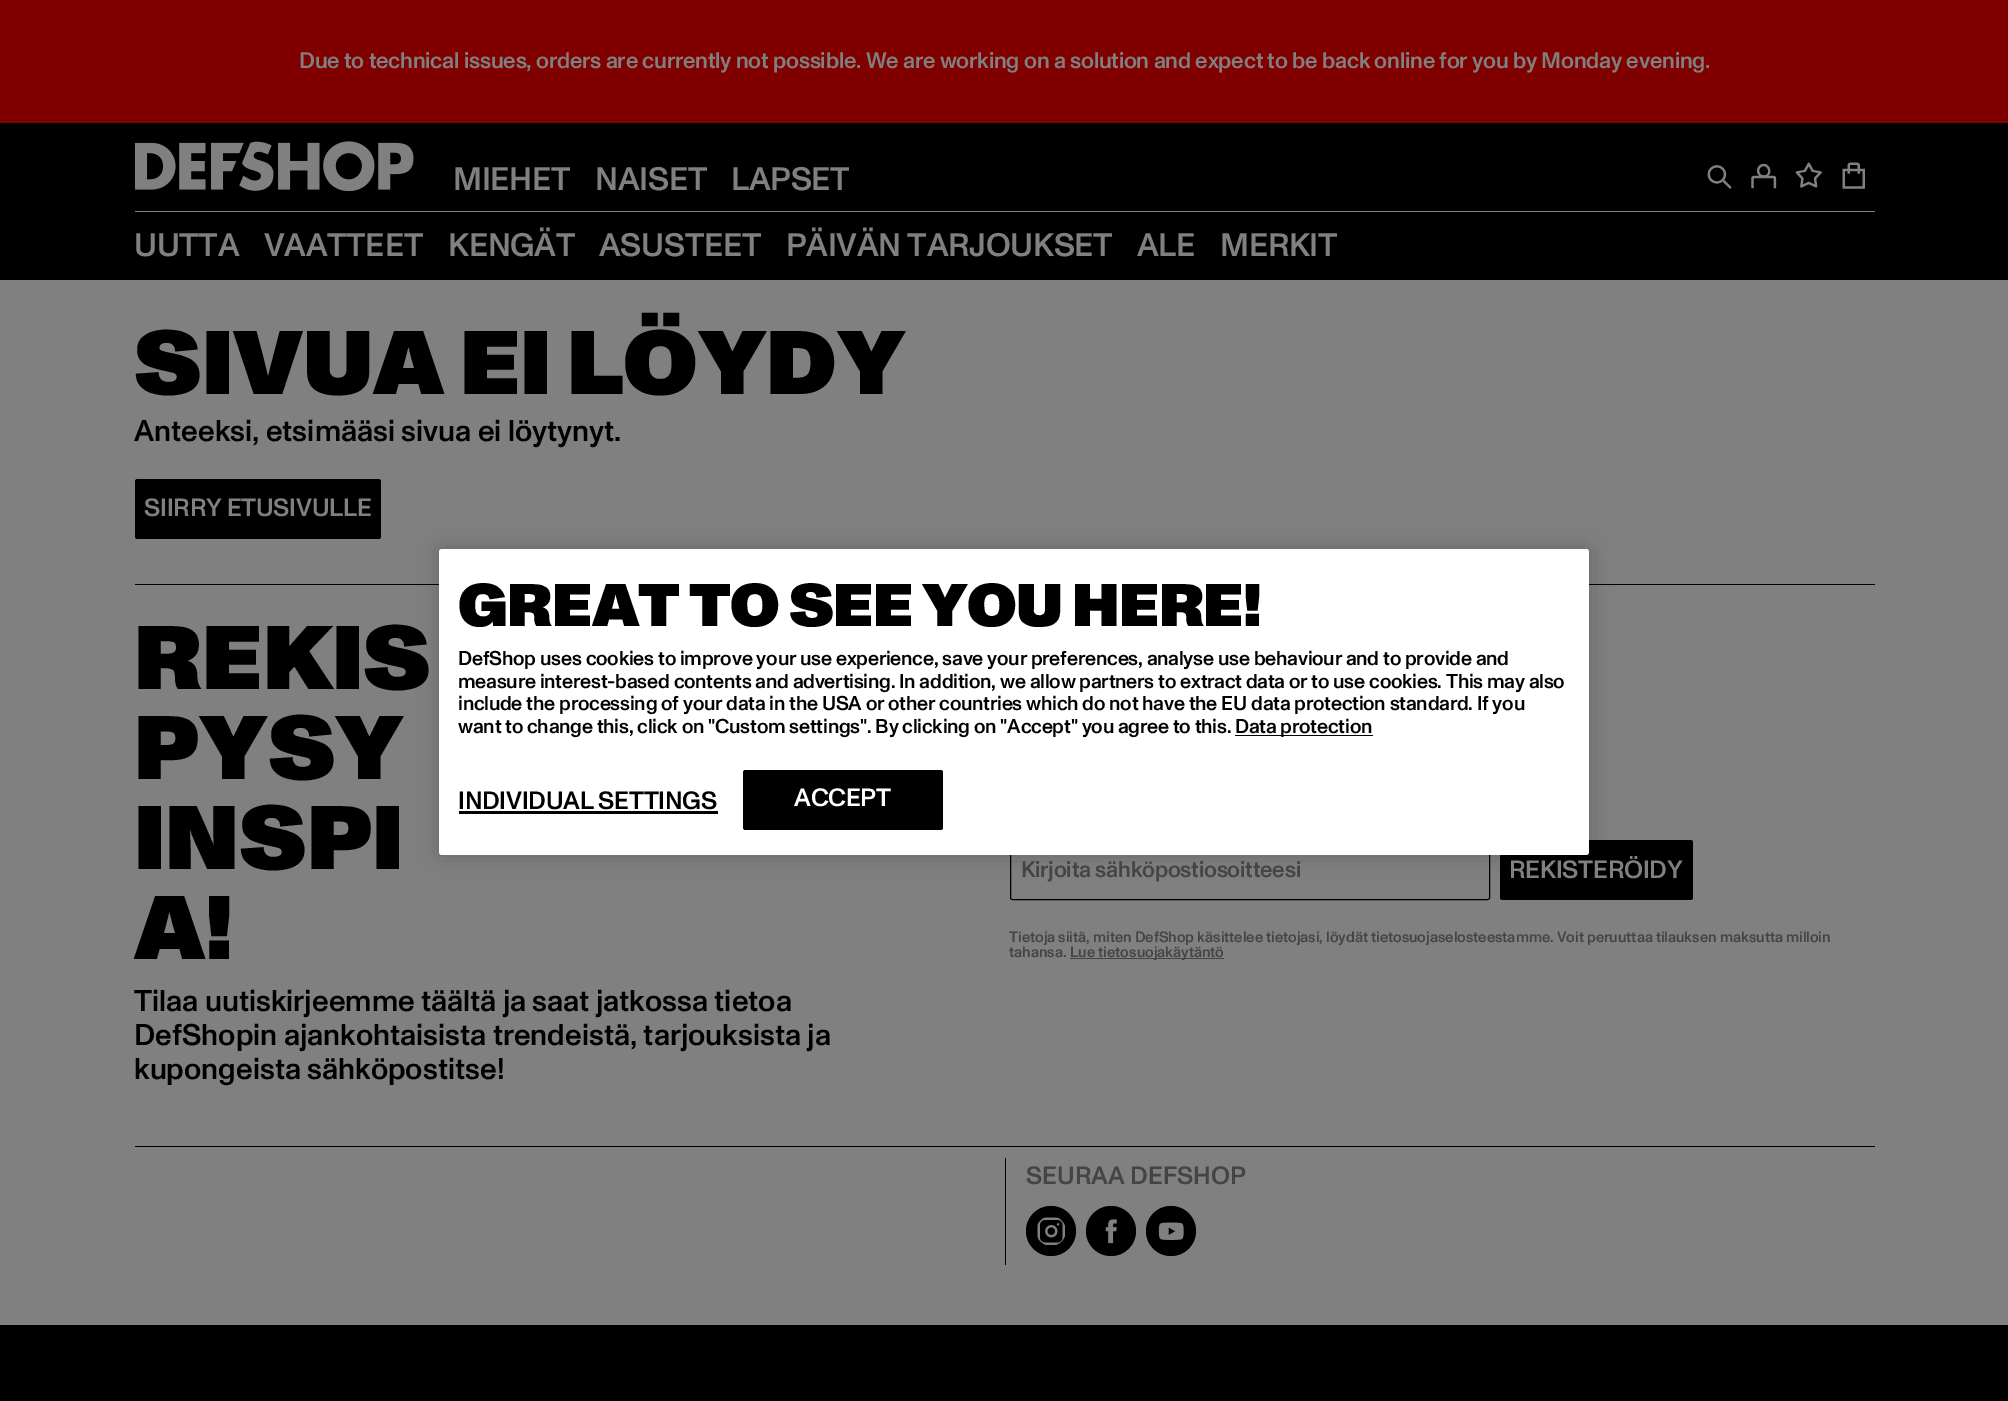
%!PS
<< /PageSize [2008 1401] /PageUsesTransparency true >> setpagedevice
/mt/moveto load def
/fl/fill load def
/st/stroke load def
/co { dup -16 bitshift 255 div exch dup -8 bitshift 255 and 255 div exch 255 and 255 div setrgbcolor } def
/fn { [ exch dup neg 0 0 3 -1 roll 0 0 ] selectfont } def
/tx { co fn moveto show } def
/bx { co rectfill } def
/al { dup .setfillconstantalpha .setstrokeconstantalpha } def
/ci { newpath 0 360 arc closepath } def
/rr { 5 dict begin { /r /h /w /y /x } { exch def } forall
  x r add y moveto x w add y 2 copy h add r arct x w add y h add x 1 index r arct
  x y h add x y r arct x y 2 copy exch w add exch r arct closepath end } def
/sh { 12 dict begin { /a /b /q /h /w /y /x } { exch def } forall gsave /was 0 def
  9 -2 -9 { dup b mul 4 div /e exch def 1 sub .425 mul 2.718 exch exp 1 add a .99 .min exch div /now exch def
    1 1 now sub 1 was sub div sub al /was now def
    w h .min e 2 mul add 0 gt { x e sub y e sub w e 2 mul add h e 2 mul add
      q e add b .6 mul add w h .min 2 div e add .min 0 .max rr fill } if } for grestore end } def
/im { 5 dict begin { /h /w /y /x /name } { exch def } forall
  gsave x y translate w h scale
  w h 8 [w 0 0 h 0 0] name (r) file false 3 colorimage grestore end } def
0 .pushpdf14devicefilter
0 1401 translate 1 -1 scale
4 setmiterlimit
0 0 2008 1401 16#808080 bx
0 0 2008 123 16#800000 bx
0 123 2008 157 16#000000 bx
135 211 1740 1 16#808080 bx
(media/1.raw) 135 141 279 50 im
(media/2.raw) 1707 165 25 24 im
(media/3.raw) 1751 163 26 26 im
(media/4.raw) 1795 162 27 26 im
(media/5.raw) 1842 162 23 27 im
16#000000 co
135 479 246 60 2.5 rr fl
135 584 1740 1 16#000000 bx
1010.5 840.5 479 59 2 rr st
1500 840 193 60 2.5 rr fl
1070 958 154 1 16#444444 bx
135 1146 1740 1 16#000000 bx
1005 1158 1 107 16#000000 bx
1051 1231 25 ci fl
(media/6.raw) 1037 1217 28 28 im
1111 1231 25 ci fl
(media/7.raw) 1105 1219 12 25 im
1171 1231 25 ci fl
(media/8.raw) 1158 1222 26 18 im
0 1325 2008 76 16#000000 bx
439 549 1150 306 3 11 .2 sh
16#FFFFFF co
439 549 1150 306 3 rr fl
1235 735 138 1 16#000000 bx
459 811 259 3 16#000000 bx
743 770 200 60 2.5 rr fl
/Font-Medium 22.5 fn
16#808080 co
299 68 mt -.22 0 (Due to technical issues, orders are currently not possible. We are working on a solution and expect to be back online for you by Monday evening.) ashow
/Font-Medium 32.5 fn
453 190 mt -.3 0 (MIEHET) ashow
595 190 mt -.3 0 (NAISET) ashow
731 190 mt -.3 0 (LAPSET) ashow
134 256 mt -.3 0 (UUTTA) ashow
264 256 mt -.3 0 (VAATTEET) ashow
448 256 mt -.3 0 (KENGÄT) ashow
599 256 mt -.3 0 (ASUSTEET) ashow
786 256 mt -.3 0 (PÄIVÄN TARJOUKSET) ashow
1137 256 mt -.3 0 (ALE) ashow
1220 256 mt -.3 0 (MERKIT) ashow
(SIVUA EI LÖYDY) 134 394 /Font-Black 90 16#000000 tx
(Anteeksi, etsimääsi sivua ei löytynyt.) 134 441 /Font-Medium 30 16#000000 tx
/Font-Medium 25 fn
16#808080 co
144 516 mt -.25 0 (SIIRRY ETUSIVULLE) ashow
(REKIS) 134 689 /Font-Black 90 16#000000 tx
(PYSY) 134 779 /Font-Black 90 16#000000 tx
(INSPI) 134 869 /Font-Black 90 16#000000 tx
(A!) 134 959 /Font-Black 90 16#000000 tx
(Tilaa uutiskirjeemme täältä ja saat jatkossa tietoa) 134 1011 /Font-Medium 30 16#000000 tx
(DefShopin ajankohtaisista trendeistä, tarjouksista ja) 134 1045 /Font-Medium 30 16#000000 tx
(kupongeista sähköpostitse!) 134 1079 /Font-Medium 30 16#000000 tx
/Font-Medium 22.5 fn
16#444444 co
1021 877 mt -.22 0 (Kirjoita sähköpostiosoitteesi) ashow
/Font-Medium 25 fn
16#808080 co
1509 878 mt -.25 0 (REKISTERÖIDY) ashow
(Tietoja siitä, miten DefShop käsittelee tietojasi, löydät tietosuojaselosteestamme. Voit peruuttaa tilauksen maksutta milloin) 1009 942 /Font-Medium 15 16#444444 tx
(tahansa.) 1009 957 /Font-Medium 15 16#444444 tx
(Lue tietosuojakäytäntö) 1070 957 /Font-Medium 15 16#444444 tx
(SEURAA DEFSHOP) 1026 1184 /Font-Medium 25 16#444444 tx
/Font-Black 60 fn
16#000000 co
458 626 mt -.6 0 (GREAT TO SEE YOU HERE!) ashow
/Font-Medium 20 fn
458 665 mt -.2 0 (DefShop uses cookies to improve your use experience, save your preferences, analyse use behaviour and to provide and) ashow
458 688 mt -.2 0 (measure interest-based contents and advertising. In addition, we allow partners to extract data or to use cookies. This may also) ashow
458 710 mt -.2 0 (include the processing of your data in the USA or other countries which do not have the EU data protection standard. If you) ashow
458 733 mt -.2 0 (want to change this, click on "Custom settings". By clicking on "Accept" you agree to this.) ashow
1235 733 mt -.2 0 (Data protection) ashow
/Font-Medium 25 fn
458 809 mt -.25 0 (INDIVIDUAL SETTINGS) ashow
16#FFFFFF co
794 806 mt -.25 0 (ACCEPT) ashow
.poppdf14devicefilter showpage
